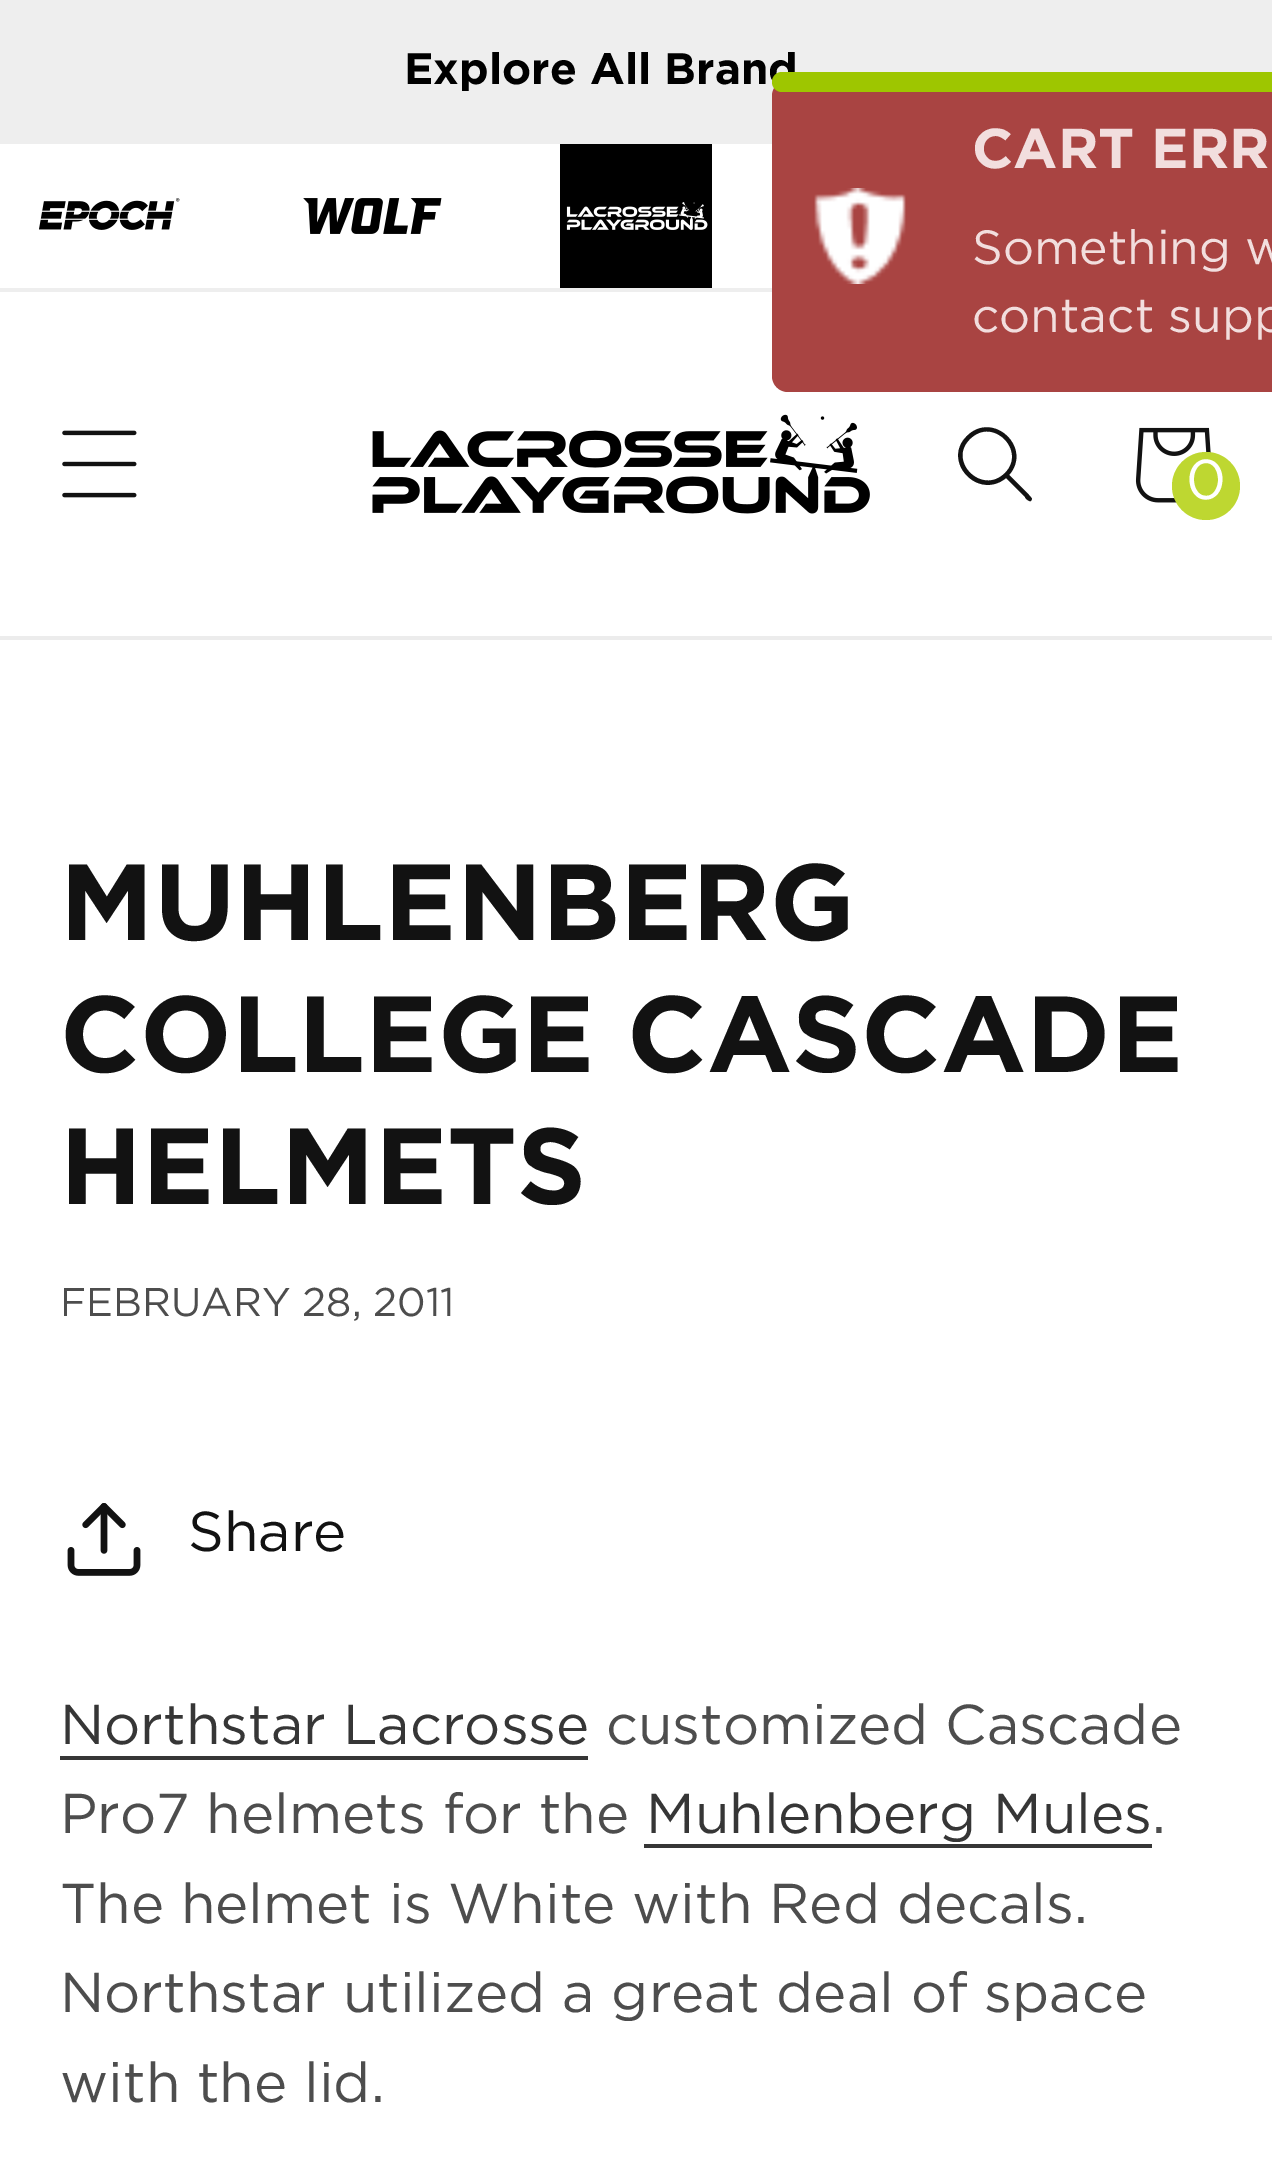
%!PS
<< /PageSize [1272 2183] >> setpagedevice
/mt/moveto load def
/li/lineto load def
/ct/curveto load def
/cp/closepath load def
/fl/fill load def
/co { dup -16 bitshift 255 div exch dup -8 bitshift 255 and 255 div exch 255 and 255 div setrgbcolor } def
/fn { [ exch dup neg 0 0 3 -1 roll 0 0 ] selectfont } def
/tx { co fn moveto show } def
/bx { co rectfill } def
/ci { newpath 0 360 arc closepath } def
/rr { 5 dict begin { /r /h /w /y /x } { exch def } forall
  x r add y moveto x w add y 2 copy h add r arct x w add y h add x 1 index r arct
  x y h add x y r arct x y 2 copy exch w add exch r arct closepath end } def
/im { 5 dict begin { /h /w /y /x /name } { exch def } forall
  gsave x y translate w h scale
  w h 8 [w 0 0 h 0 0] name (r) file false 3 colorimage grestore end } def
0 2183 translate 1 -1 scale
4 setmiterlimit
0 0 1272 2183 16#FFFFFF bx
0 288 772 4 16#EEEEEE bx
0 0 1272 144 16#EEEEEE bx
(media/1.raw) 39 198 141 32 im
(media/2.raw) 303 198 139 36 im
560 144 152 144 16#000000 bx
(media/3.raw) 566 202 142 28 im
0 636 1272 4 16#ECECEC bx
(media/5.raw) 62 430 75 68 im
(media/6.raw) 372 414 498 100 im
16#121212 co
1005 473 mt 982 496 947 461 970 439 ct 993 416 1027 451 1005 473 ct cp 1006 478 mt 978 501 941 461 967 436 ct 993 410 1033 448 1009 475 ct 1012 478 1032 497 1032 499 ct 1031 501 li 1029 502 1025 498 1025 497 ct cp eofill
(media/7.raw) 1135 427 76 76 im
16#BED731 co
1206 486 34 ci fl
(media/8.raw) 67 1503 74 73 im
60 1756 528 4 16#363636 bx
644 1844 508 4 16#363636 bx
(Explore All Brand) 404 84 /Gotham-Bold 44 16#000000 tx
16#A94442 co
772 80 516 312 16 rr fl
(media/4.raw) 814 188 92 96 im
16#9EC600 co
772 72 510 20 10 rr fl
(CART ERR) 972 168 /Gotham-Bold 56 16#F2DEDE tx
(Something w) 972 264 /Gotham-Regular 48 16#F2DEDE tx
(contact supp) 972 332 /Gotham-Regular 48 16#F2DEDE tx
(0) 1186 499 /Gotham-Regular 56 16#FFFFFF tx
(MUHLENBERG) 60 940 /Gotham-Bold 108 16#121212 tx
(COLLEGE CASCADE) 60 1072 /Gotham-Bold 108 16#121212 tx
(HELMETS) 60 1204 /Gotham-Bold 108 16#121212 tx
(FEBRUARY 28, 2011) 60 1316 /Gotham-Regular 40 16#4D4D4D tx
(Share) 188 1551 /Gotham-Regular 56 16#121212 tx
(Northstar Lacrosse) 60 1744 /Gotham-Regular 56 16#363636 tx
(customized Cascade) 606 1744 /Gotham-Regular 56 16#4D4D4D tx
(Pro7 helmets for the) 60 1833 /Gotham-Regular 56 16#4D4D4D tx
(Muhlenberg Mules) 646 1833 /Gotham-Regular 56 16#363636 tx
(.) 1152 1833 /Gotham-Regular 56 16#4D4D4D tx
(The helmet is White with Red decals.) 60 1923 /Gotham-Regular 56 16#4D4D4D tx
(Northstar utilized a great deal of space) 60 2012 /Gotham-Regular 56 16#4D4D4D tx
(with the lid.) 60 2102 /Gotham-Regular 56 16#4D4D4D tx
showpage
